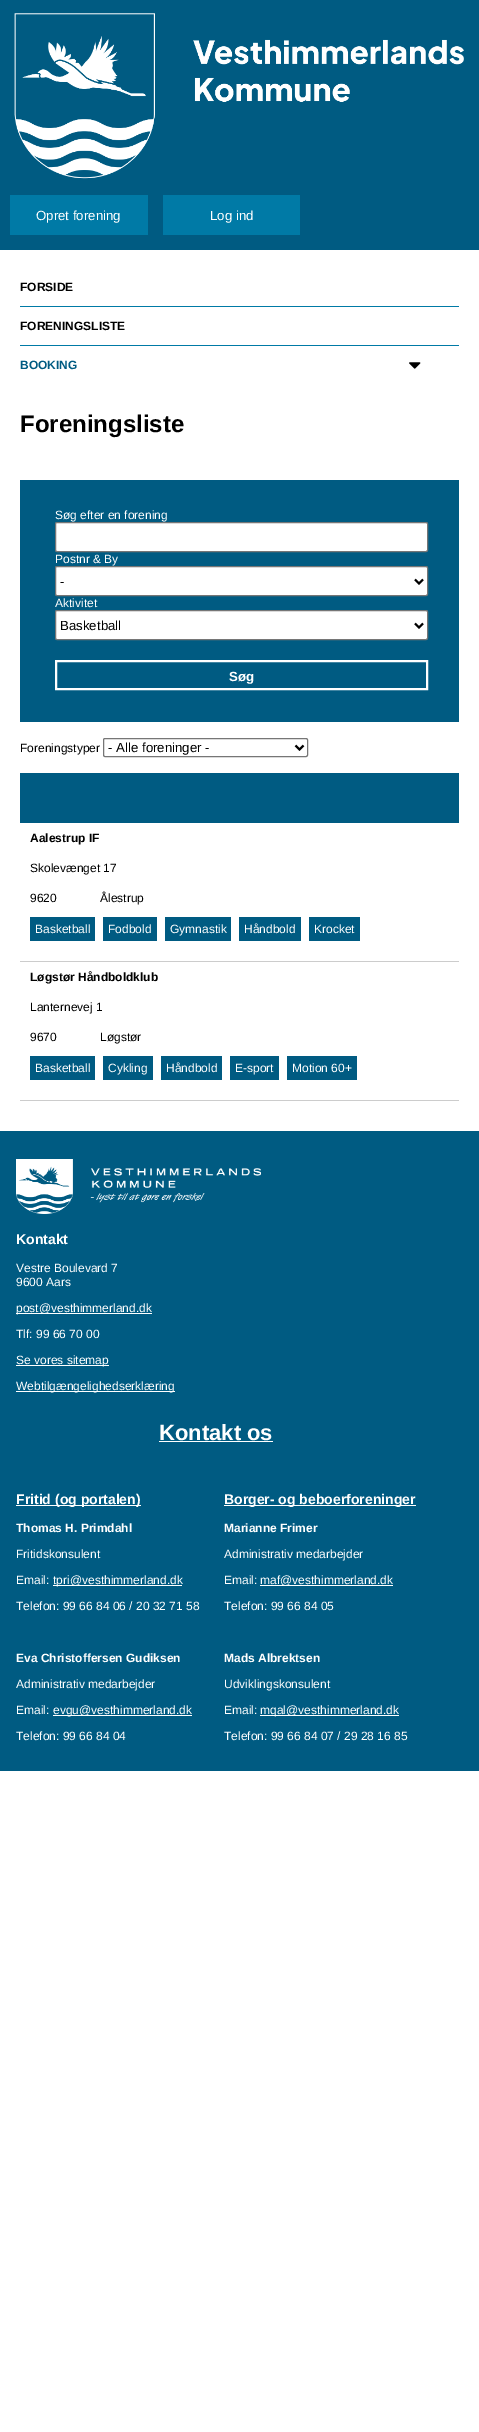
%!PS
<< /PageSize [479 2432] >> setpagedevice
/mt/moveto load def
/li/lineto load def
/fl/fill load def
/st/stroke load def
/gs/gsave load def
/gr/grestore load def
/lw/setlinewidth load def
/co { dup -16 bitshift 255 div exch dup -8 bitshift 255 and 255 div exch 255 and 255 div setrgbcolor } def
/fn { [ exch dup neg 0 0 3 -1 roll 0 0 ] selectfont } def
/tx { co fn moveto show } def
/bx { co rectfill } def
/rr { 5 dict begin { /r /h /w /y /x } { exch def } forall
  x r add y moveto x w add y 2 copy h add r arct x w add y h add x 1 index r arct
  x y h add x y r arct x y 2 copy exch w add exch r arct closepath end } def
/im { 5 dict begin { /h /w /y /x /name } { exch def } forall
  gsave x y translate w h scale
  w h 8 [w 0 0 h 0 0] name (r) file false 3 colorimage grestore end } def
0 2432 translate 1 -1 scale
4 setmiterlimit
0 0 479 2432 16#FFFFFF bx
0 0 479 250 16#005B82 bx
(media/1.raw) 14 13 450 166 im
10 195 138 40 16#007AA6 bx
163 195 137 40 16#007AA6 bx
20 306 439 1 16#007AA6 bx
20 345 439 1 16#007AA6 bx
(media/2.raw) 409 362 12 7 im
20 480 439 242 16#005B82 bx
16#FFFFFF co
55.5 522.5 372 29 1.5 rr gs fl gr
16#767676 co
st
16#FFFFFF co
55.5 566.5 372 29 1.5 rr gs fl gr
16#767676 co
st
16#000000 co
2 lw
415 579.5 mt 419 583.5 li 423 579.5 li st
16#FFFFFF co
55.5 610.5 372 29 1.5 rr gs fl gr
16#767676 co
1 lw
st
16#000000 co
2 lw
415 623.5 mt 419 627.5 li 423 623.5 li st
16#FFFFFF co
56 661 371 28 rectstroke
16#767676 co
1 lw
103.5 738.5 204 18 1.5 rr st
16#000000 co
2 lw
295.5 745.5 mt 299.5 749.5 li 303.5 745.5 li st
20 773 439 50 16#005B82 bx
20 961 439 1 16#CCCCCC bx
30 917 65 24 16#005B82 bx
103 917 54 24 16#005B82 bx
165 917 66 24 16#005B82 bx
239 917 62 24 16#005B82 bx
309 917 51 24 16#005B82 bx
20 1100 439 1 16#CCCCCC bx
30 1056 65 24 16#005B82 bx
103 1056 50 24 16#005B82 bx
161 1056 61 24 16#005B82 bx
230 1056 49 24 16#005B82 bx
287 1056 70 24 16#005B82 bx
0 1131 479 640 16#005B82 bx
(media/3.raw) 16 1159 245 55 im
16 1313 136 1 16#FFFFFF bx
16 1365 93 1 16#FFFFFF bx
16 1391 159 1 16#FFFFFF bx
159 1441 114 1 16#FFFFFF bx
16 1505 125 1 16#FFFFFF bx
53 1585 129 1 16#FFFFFF bx
53 1715 139 1 16#FFFFFF bx
224 1505 192 1 16#FFFFFF bx
260 1585 133 1 16#FFFFFF bx
260 1715 139 1 16#FFFFFF bx
(Opret forening) 36 220 /LiberationSans-Regular 13.25 16#FFFFFF tx
(Log ind) 210 220 /LiberationSans-Regular 13.25 16#FFFFFF tx
(FORSIDE) 20 291 /LiberationSans-Bold 12 16#000000 tx
(FORENINGSLISTE) 20 330 /LiberationSans-Bold 12 16#000000 tx
(BOOKING) 20 369 /LiberationSans-Bold 12 16#005B82 tx
(Foreningsliste) 20 432 /LiberationSans-Bold 24 16#000000 tx
(Søg efter en forening) 55 519 /LiberationSans-Regular 12 16#FFFFFF tx
(Postnr & By) 55 563 /LiberationSans-Regular 12 16#FFFFFF tx
(-) 60 586 /LiberationSans-Regular 13.25 16#000000 tx
(Aktivitet) 55 607 /LiberationSans-Regular 12 16#FFFFFF tx
(Basketball) 60 630 /LiberationSans-Regular 13.25 16#000000 tx
(Søg) 229 681 /LiberationSans-Bold 13.25 16#FFFFFF tx
(Foreningstyper) 20 752 /LiberationSans-Regular 12 16#000000 tx
(- Alle foreninger -) 108 752 /LiberationSans-Regular 13.25 16#000000 tx
(Aalestrup IF) 30 842 /LiberationSans-Bold 12 16#000000 tx
(Skolevænget 17) 30 872 /LiberationSans-Regular 12 16#000000 tx
(9620) 30 902 /LiberationSans-Regular 12 16#000000 tx
(Ålestrup) 100 902 /LiberationSans-Regular 12 16#000000 tx
(Basketball) 35 933 /LiberationSans-Regular 12 16#FFFFFF tx
(Fodbold) 108 933 /LiberationSans-Regular 12 16#FFFFFF tx
(Gymnastik) 170 933 /LiberationSans-Regular 12 16#FFFFFF tx
(Håndbold) 244 933 /LiberationSans-Regular 12 16#FFFFFF tx
(Krocket) 314 933 /LiberationSans-Regular 12 16#FFFFFF tx
(Løgstør Håndboldklub) 30 981 /LiberationSans-Bold 12 16#000000 tx
(Lanternevej 1) 30 1011 /LiberationSans-Regular 12 16#000000 tx
(9670) 30 1041 /LiberationSans-Regular 12 16#000000 tx
(Løgstør) 100 1041 /LiberationSans-Regular 12 16#000000 tx
(Basketball) 35 1072 /LiberationSans-Regular 12 16#FFFFFF tx
(Cykling) 108 1072 /LiberationSans-Regular 12 16#FFFFFF tx
(Håndbold) 166 1072 /LiberationSans-Regular 12 16#FFFFFF tx
(E-sport) 235 1072 /LiberationSans-Regular 12 16#FFFFFF tx
(Motion 60+) 292 1072 /LiberationSans-Regular 12 16#FFFFFF tx
(Kontakt) 16 1244 /LiberationSans-Bold 14 16#FFFFFF tx
(Vestre Boulevard 7) 16 1272 /LiberationSans-Regular 12 16#FFFFFF tx
(9600 Aars) 16 1286 /LiberationSans-Regular 12 16#FFFFFF tx
(post@vesthimmerland.dk) 16 1312 /LiberationSans-Regular 12 16#FFFFFF tx
(Tlf: 99 66 70 00) 16 1338 /LiberationSans-Regular 12 16#FFFFFF tx
(Se vores sitemap) 16 1364 /LiberationSans-Regular 12 16#FFFFFF tx
(Webtilgængelighedserklæring) 16 1390 /LiberationSans-Regular 12 16#FFFFFF tx
(Kontakt os) 159 1440 /LiberationSans-Bold 22 16#FFFFFF tx
(Fritid \(og portalen\)) 16 1504 /LiberationSans-Bold 14 16#FFFFFF tx
(Thomas H. Primdahl) 16 1532 /LiberationSans-Bold 12 16#FFFFFF tx
(Fritidskonsulent) 16 1558 /LiberationSans-Regular 12 16#FFFFFF tx
(Email:) 16 1584 /LiberationSans-Regular 12 16#FFFFFF tx
(tpri@vesthimmerland.dk) 53 1584 /LiberationSans-Regular 12 16#FFFFFF tx
(Telefon: 99 66 84 06 / 20 32 71 58) 16 1610 /LiberationSans-Regular 12 16#FFFFFF tx
(Eva Christoffersen Gudiksen) 16 1662 /LiberationSans-Bold 12 16#FFFFFF tx
(Administrativ medarbejder) 16 1688 /LiberationSans-Regular 12 16#FFFFFF tx
(Email:) 16 1714 /LiberationSans-Regular 12 16#FFFFFF tx
(evgu@vesthimmerland.dk) 53 1714 /LiberationSans-Regular 12 16#FFFFFF tx
(Telefon: 99 66 84 04) 16 1740 /LiberationSans-Regular 12 16#FFFFFF tx
(Borger- og beboerforeninger) 224 1504 /LiberationSans-Bold 14 16#FFFFFF tx
(Marianne Frimer) 224 1532 /LiberationSans-Bold 12 16#FFFFFF tx
(Administrativ medarbejder) 224 1558 /LiberationSans-Regular 12 16#FFFFFF tx
(Email:) 224 1584 /LiberationSans-Regular 12 16#FFFFFF tx
(maf@vesthimmerland.dk) 260 1584 /LiberationSans-Regular 12 16#FFFFFF tx
(Telefon: 99 66 84 05) 224 1610 /LiberationSans-Regular 12 16#FFFFFF tx
(Mads Albrektsen) 224 1662 /LiberationSans-Bold 12 16#FFFFFF tx
(Udviklingskonsulent) 224 1688 /LiberationSans-Regular 12 16#FFFFFF tx
(Email:) 224 1714 /LiberationSans-Regular 12 16#FFFFFF tx
(mqal@vesthimmerland.dk) 260 1714 /LiberationSans-Regular 12 16#FFFFFF tx
(Telefon: 99 66 84 07 / 29 28 16 85) 224 1740 /LiberationSans-Regular 12 16#FFFFFF tx
showpage
